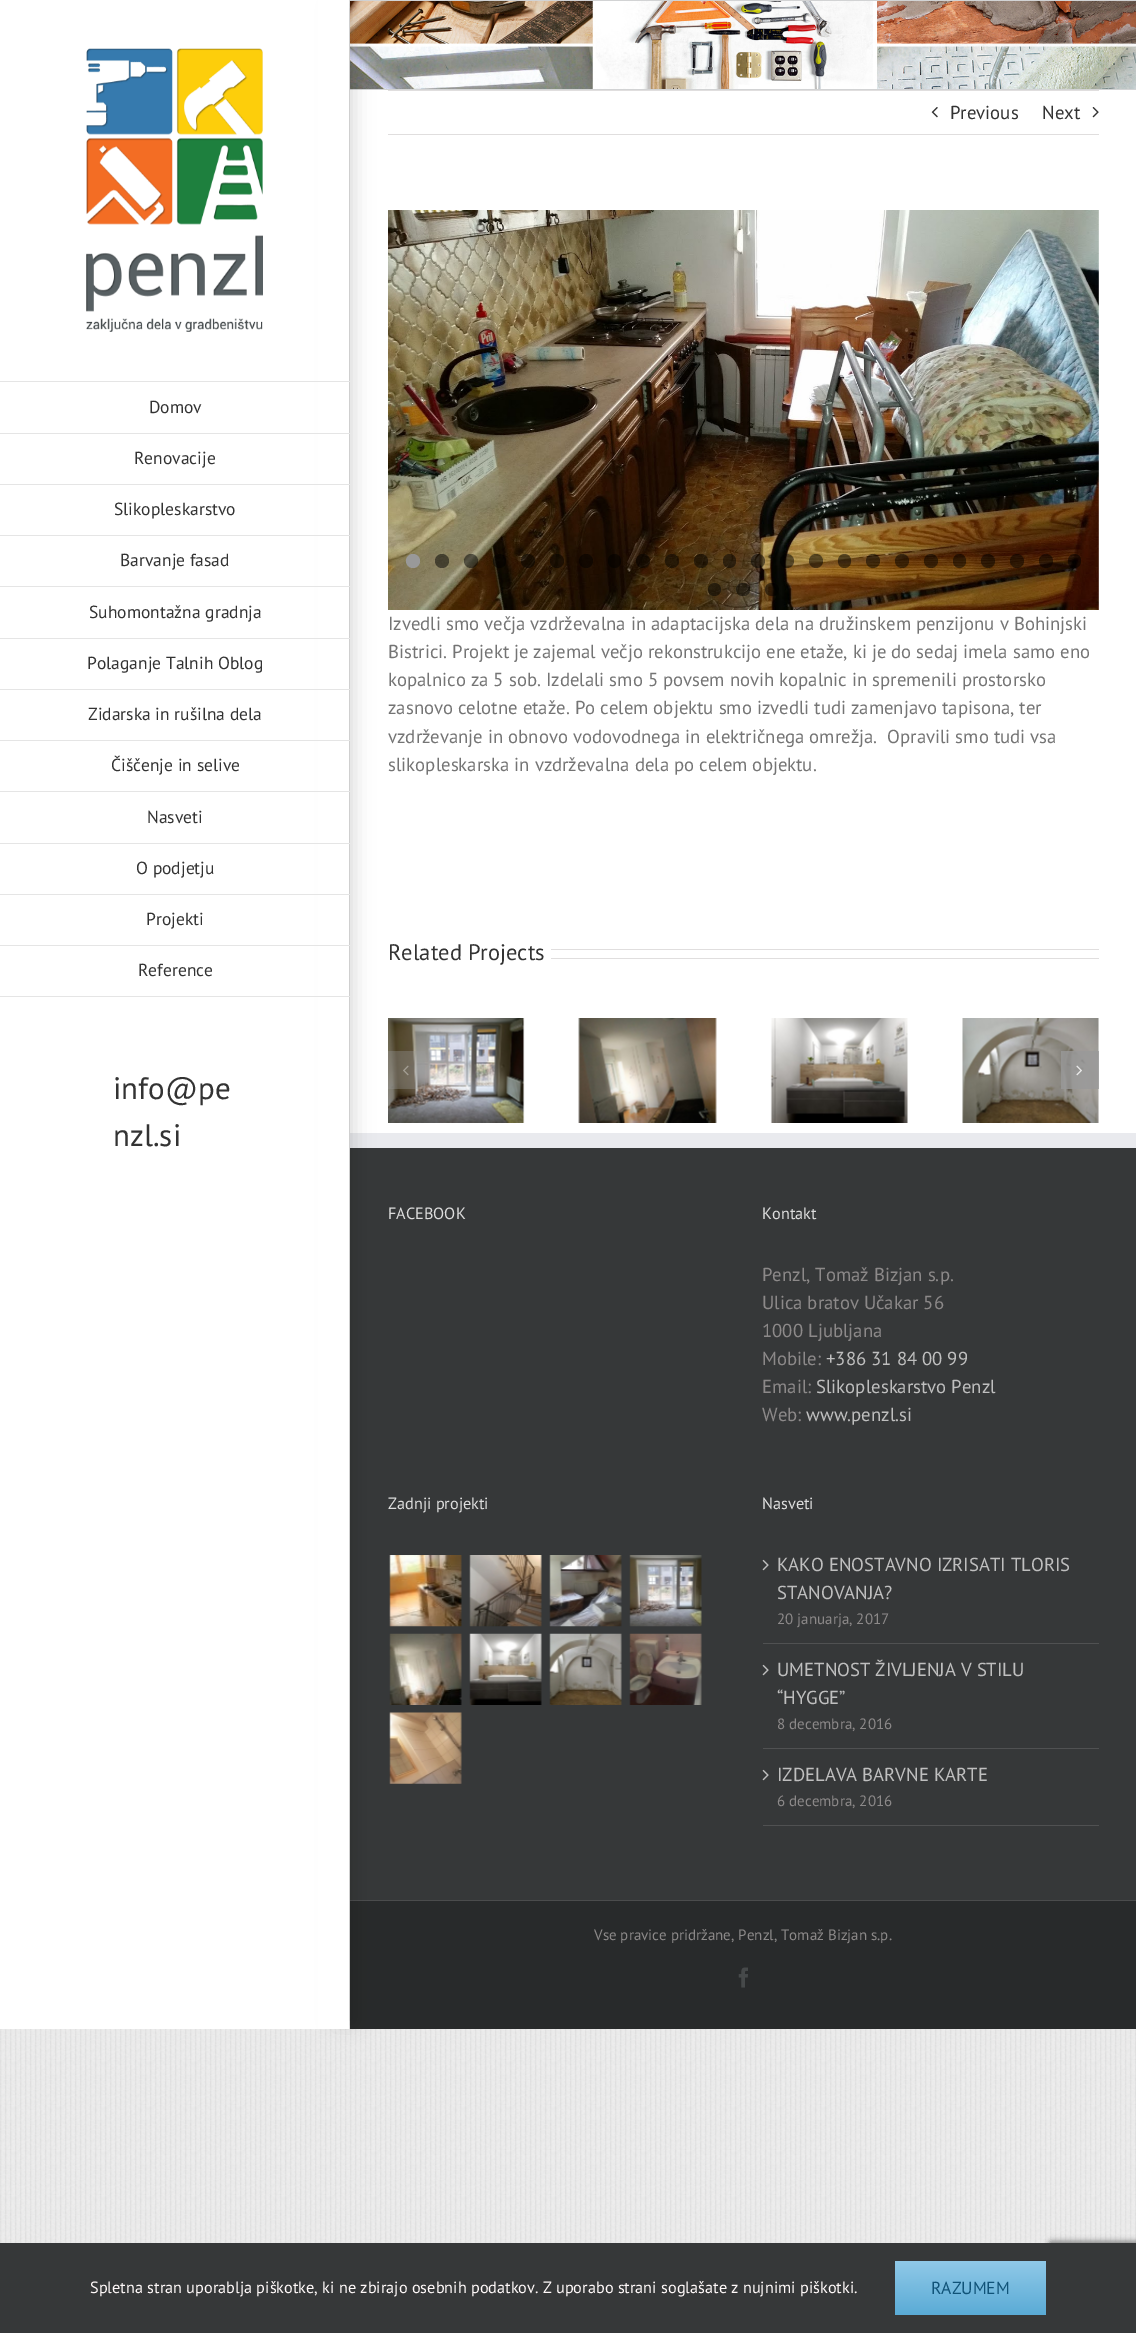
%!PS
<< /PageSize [1136 2333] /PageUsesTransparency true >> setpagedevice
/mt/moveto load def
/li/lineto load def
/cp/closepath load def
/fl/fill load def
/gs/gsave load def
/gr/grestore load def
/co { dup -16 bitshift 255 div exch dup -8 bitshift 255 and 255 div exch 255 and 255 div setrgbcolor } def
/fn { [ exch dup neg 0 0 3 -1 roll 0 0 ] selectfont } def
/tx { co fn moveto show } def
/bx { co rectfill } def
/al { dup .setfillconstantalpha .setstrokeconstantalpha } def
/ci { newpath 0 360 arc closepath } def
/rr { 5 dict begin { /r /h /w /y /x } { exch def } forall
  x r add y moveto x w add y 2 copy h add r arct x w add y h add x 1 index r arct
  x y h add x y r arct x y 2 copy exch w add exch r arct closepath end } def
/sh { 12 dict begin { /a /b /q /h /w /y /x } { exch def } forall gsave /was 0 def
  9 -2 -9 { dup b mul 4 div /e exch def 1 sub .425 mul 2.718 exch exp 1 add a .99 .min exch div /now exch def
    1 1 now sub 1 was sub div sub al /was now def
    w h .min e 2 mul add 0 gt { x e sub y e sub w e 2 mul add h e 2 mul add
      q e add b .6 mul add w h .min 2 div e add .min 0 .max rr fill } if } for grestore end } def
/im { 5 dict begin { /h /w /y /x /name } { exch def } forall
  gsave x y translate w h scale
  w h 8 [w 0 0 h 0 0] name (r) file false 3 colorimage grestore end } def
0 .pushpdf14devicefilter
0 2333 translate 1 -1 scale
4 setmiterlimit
0 0 1136 2333 16#FFFFFF bx
(media/1.raw) 0 2029 1136 214 im
(media/2.raw) 350 1 786 88 im
350 0 786 1 16#D2D3D4 bx
350 89 786 1 16#D2D3D4 bx
(media/3.raw) 86 48 177 284 im
349 0 1 2029 16#E5E5E5 bx
350 1148 786 752 16#363839 bx
350 1133 786 15 16#E9EAEE bx
350 1901 786 128 16#282A2B bx
350 1900 786 1 16#4B4C4D bx
gs
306 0 mt 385 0 li 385 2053 li 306 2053 li cp 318 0 mt 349 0 li 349 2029 li 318 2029 li cp eoclip newpath
16#000000 co
336 6 19 2017 0 9.5 .14 sh
gr
0 381 350 1 16#E5E5E5 bx
0 433 350 1 16#E5E5E5 bx
0 484 350 1 16#E5E5E5 bx
0 535 350 1 16#E5E5E5 bx
0 586 350 1 16#E5E5E5 bx
0 638 350 1 16#E5E5E5 bx
0 689 350 1 16#E5E5E5 bx
0 740 350 1 16#E5E5E5 bx
0 791 350 1 16#E5E5E5 bx
0 843 350 1 16#E5E5E5 bx
0 894 350 1 16#E5E5E5 bx
0 945 350 1 16#E5E5E5 bx
0 996 350 1 16#E5E5E5 bx
388 90 711 1 16#E0DEDE bx
388 134 711 1 16#E0DEDE bx
(media/4.raw) 931 107 7 11 im
(media/5.raw) 1092 107 7 11 im
(media/6.raw) 388 210 711 400 im
16#999999 co
413 561 7 ci fl
0.5 al
16#000000 co
442 561 7 ci fl
471 561 7 ci fl
493 554 13 14 6.5 rr fl
528 561 7 ci fl
557 561 7 ci fl
586 561 7 ci fl
608 554 13 14 6.5 rr fl
643 561 7 ci fl
672 561 7 ci fl
701 561 7 ci fl
723 554 13 14 6.5 rr fl
758 561 7 ci fl
787 561 7 ci fl
816 561 7 ci fl
838 554 13 14 6.5 rr fl
873 561 7 ci fl
902 561 7 ci fl
931 561 7 ci fl
953 554 13 14 6.5 rr fl
988 561 7 ci fl
1017 561 7 ci fl
1046 561 7 ci fl
1068 554 13 14 6.5 rr fl
714.5 589.5 6.5 ci fl
736 583 14 13 6.5 rr fl
765 583 14 13 6.5 rr fl
1 al
551 949 548 1 16#E0DEDE bx
551 958 548 1 16#E0DEDE bx
(media/7.raw) 388 1018 137 105 im
(media/8.raw) 578 1018 139 105 im
(media/9.raw) 770 1018 138 105 im
(media/10.raw) 962 1018 137 105 im
0.35 al
388 1051 37 38 16#999999 bx
1 al
(media/11.raw) 403 1065 6 11 im
0.8 al
1061 1051 38 38 16#999999 bx
1 al
(media/12.raw) 1076 1065 6 11 im
(media/13.raw) 389 1555 73 72 im
(media/14.raw) 469 1555 73 72 im
(media/15.raw) 549 1555 73 72 im
(media/16.raw) 629 1555 73 72 im
(media/17.raw) 389 1633 73 72 im
(media/18.raw) 469 1633 73 72 im
(media/19.raw) 549 1633 73 72 im
(media/20.raw) 629 1633 73 72 im
(media/21.raw) 389 1712 73 72 im
763 1643 336 1 16#505152 bx
(media/22.raw) 762 1559 7 12 im
763 1748 336 1 16#505152 bx
(media/22.raw) 762 1664 7 12 im
763 1825 336 1 16#505152 bx
(media/22.raw) 762 1769 7 12 im
(media/23.raw) 738 1967 10 21 im
16#808080 co
1049 2241 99 75 2.5 3 1 sh
0 2243 1136 90 16#363839 bx
gs 895 2261 151 54 2.5 rr clip newpath
<< /ShadingType 2 /ColorSpace /DeviceRGB /Coords [971 2261 971 2315] /Extend [true true] /Function << /FunctionType 2 /Domain [0 1] /C0 [.565 .788 .91] /C1 [.353 .671 .839] /N 1 >> >> shfill gr
(Domov) 149 413 /PTSans-Regular 17.5 16#333333 tx
(Renovacije) 134 464 /PTSans-Regular 17.5 16#333333 tx
(Slikopleskarstvo) 114 515 /PTSans-Regular 17.5 16#333333 tx
(Barvanje fasad) 120 566 /PTSans-Regular 17.5 16#333333 tx
(Suhomontažna gradnja) 89 618 /PTSans-Regular 17.5 16#333333 tx
(Polaganje Talnih Oblog) 87 669 /PTSans-Regular 17.5 16#333333 tx
(Zidarska in rušilna dela) 88 720 /PTSans-Regular 17.5 16#333333 tx
(Čiščenje in selive) 111 771 /PTSans-Regular 17.5 16#333333 tx
(Nasveti) 147 823 /PTSans-Regular 17.5 16#333333 tx
(O podjetju) 136 874 /PTSans-Regular 17.5 16#333333 tx
(Projekti) 146 925 /PTSans-Regular 17.5 16#333333 tx
(Reference) 138 976 /PTSans-Regular 17.5 16#333333 tx
(info@pe) 113 1099 /PTSans-Regular 31 16#333333 tx
(nzl.si) 113 1146 /PTSans-Regular 31 16#333333 tx
(Previous) 950 119 /PTSans-Regular 18.75 16#333333 tx
(Next) 1042 119 /PTSans-Regular 18.75 16#333333 tx
(Izvedli smo večja vzdrževalna in adaptacijska dela na družinskem penzijonu v Bohinjski) 388 630 /PTSans-Regular 18.75 16#747474 tx
(Bistrici. Projekt je zajemal večjo rekonstrukcijo ene etaže, ki je do sedaj imela samo eno) 388 658 /PTSans-Regular 18.75 16#747474 tx
(kopalnico za 5 sob. Izdelali smo 5 povsem novih kopalnic in spremenili prostorsko) 388 686 /PTSans-Regular 18.75 16#747474 tx
(zasnovo celotne etaže. Po celem objektu smo izvedli tudi zamenjavo tapisona, ter) 388 714 /PTSans-Regular 18.75 16#747474 tx
(vzdrževanje in obnovo vodovodnega in električnega omrežja.  Opravili smo tudi vsa) 388 743 /PTSans-Regular 18.75 16#747474 tx
(slikopleskarska in vzdrževalna dela po celem objektu.) 388 771 /PTSans-Regular 18.75 16#747474 tx
(Related Projects) 388 960 /PTSans-Regular 22.5 16#333333 tx
(FACEBOOK) 388 1219 /PTSans-Regular 16.25 16#DDDDDD tx
(Kontakt) 762 1219 /PTSans-Regular 16.25 16#DDDDDD tx
(Penzl, Tomaž Bizjan s.p.) 762 1281 /PTSans-Regular 18.75 16#8C8989 tx
(Ulica bratov Učakar 56) 762 1309 /PTSans-Regular 18.75 16#8C8989 tx
(1000 Ljubljana) 762 1337 /PTSans-Regular 18.75 16#8C8989 tx
(Mobile:) 762 1365 /PTSans-Regular 18.75 16#8C8989 tx
(+386 31 84 00 99) 826 1365 /PTSans-Regular 18.75 16#BFBFBF tx
(Email:) 762 1393 /PTSans-Regular 18.75 16#8C8989 tx
(Slikopleskarstvo Penzl) 816 1393 /PTSans-Regular 18.75 16#BFBFBF tx
(Web:) 762 1421 /PTSans-Regular 18.75 16#8C8989 tx
(www.penzl.si) 806 1421 /PTSans-Regular 18.75 16#BFBFBF tx
(Zadnji projekti) 388 1509 /PTSans-Regular 16.25 16#DDDDDD tx
(Nasveti) 762 1509 /PTSans-Regular 16.25 16#DDDDDD tx
(KAKO ENOSTAVNO IZRISATI TLORIS) 777 1571 /PTSans-Regular 18.75 16#BFBFBF tx
(STANOVANJA?) 777 1599 /PTSans-Regular 18.75 16#BFBFBF tx
(20 januarja, 2017) 777 1624 /PTSans-Regular 15 16#8C8989 tx
(UMETNOST ŽIVLJENJA V STILU) 777 1676 /PTSans-Regular 18.75 16#BFBFBF tx
(“HYGGE”) 777 1704 /PTSans-Regular 18.75 16#BFBFBF tx
(8 decembra, 2016) 777 1729 /PTSans-Regular 15 16#8C8989 tx
(IZDELAVA BARVNE KARTE) 777 1781 /PTSans-Regular 18.75 16#BFBFBF tx
(6 decembra, 2016) 777 1806 /PTSans-Regular 15 16#8C8989 tx
(Vse pravice pridržane, Penzl, Tomaž Bizjan s.p.) 594 1940 /PTSans-Regular 15 16#8C8989 tx
(Spletna stran uporablja piškotke, ki ne zbirajo osebnih podatkov. Z uporabo strani soglašate z nujnimi piškotki.) 90 2293 /PTSans-Regular 16.25 16#FFF9F9 tx
(RAZUMEM) 931 2294 /PTSans-Regular 17.5 16#105378 tx
.poppdf14devicefilter showpage
